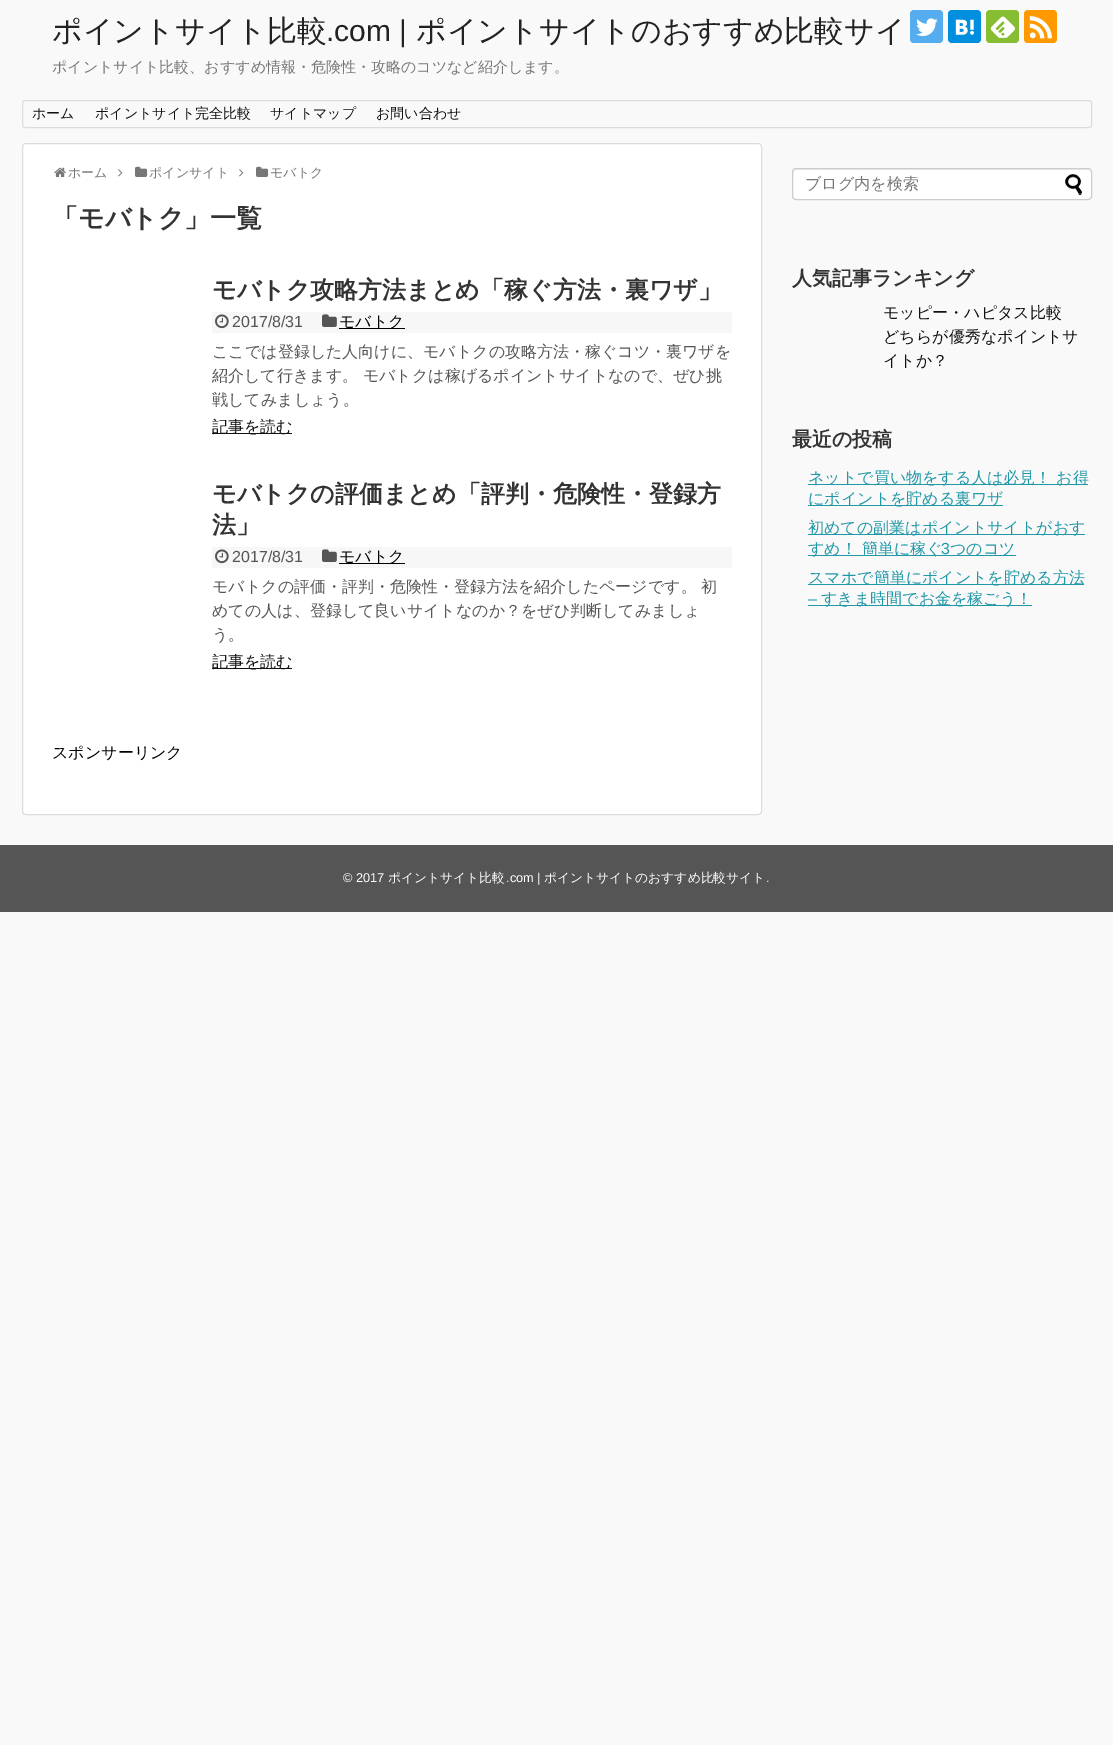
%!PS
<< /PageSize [1113 1745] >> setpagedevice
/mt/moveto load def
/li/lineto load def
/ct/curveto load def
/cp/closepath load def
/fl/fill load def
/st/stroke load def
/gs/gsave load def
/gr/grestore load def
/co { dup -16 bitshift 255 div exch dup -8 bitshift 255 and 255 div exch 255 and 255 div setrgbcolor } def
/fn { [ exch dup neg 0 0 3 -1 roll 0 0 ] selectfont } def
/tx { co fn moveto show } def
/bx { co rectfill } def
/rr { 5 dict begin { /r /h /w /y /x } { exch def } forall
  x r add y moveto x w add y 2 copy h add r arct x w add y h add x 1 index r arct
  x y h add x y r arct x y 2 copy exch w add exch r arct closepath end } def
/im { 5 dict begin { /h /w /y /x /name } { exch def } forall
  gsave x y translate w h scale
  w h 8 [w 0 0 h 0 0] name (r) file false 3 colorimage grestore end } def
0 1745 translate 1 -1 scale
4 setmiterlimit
0 0 1113 1745 16#F9F9F9 bx
16#55ACEE co
910 10 33 33 4 rr fl
(media/1.raw) 916 18 22 19 im
16#008FDE co
948 10 33 33 4 rr fl
(media/2.raw) 955 19 19 16 im
16#87BD33 co
986 10 33 33 4 rr fl
(media/3.raw) 990 16 25 22 im
16#FE9900 co
1024 10 33 33 4 rr fl
(media/4.raw) 1029 16 23 23 im
16#DDDDDD co
22.5 100.5 1069 27 2.5 rr st
16#FFFFFF co
22.5 143.5 739 671 3.5 rr gs fl gr
16#DDDDDD co
st
(media/5.raw) 54 167 12 10 im
(media/6.raw) 118 169 5 8 im
(media/7.raw) 135 166 13 11 im
(media/6.raw) 239 169 5 8 im
(media/7.raw) 256 166 13 11 im
212 312 520 21 16#F7F7F7 bx
(media/8.raw) 215 314 14 15 im
(media/9.raw) 322 314 15 13 im
339 328 66 1 16#000000 bx
212 433 80 1 16#111111 bx
212 547 520 21 16#F7F7F7 bx
(media/8.raw) 215 549 14 15 im
(media/9.raw) 322 549 15 13 im
339 563 66 1 16#000000 bx
212 668 80 1 16#111111 bx
16#FFFFFF co
792 168 300 32 4 rr fl
16#ECECEC co
796 170 mt 1088 170 li 1090 170 1091 171 1091 173 ct 1090 170 li 1089 169 li 796 169 li 794 169 793 171 793 173 ct 793 171 794 170 796 170 ct cp fl
16#CCCCCC co
792.5 168.5 299 31 3.5 rr st
(media/10.raw) 1065 174 17 21 im
808 484 280 1 16#2098A8 bx
808 505 195 1 16#2098A8 bx
808 534 277 1 16#2098A8 bx
808 555 208 1 16#2098A8 bx
808 584 276 1 16#2098A8 bx
808 605 224 1 16#2098A8 bx
0 845 1113 67 16#555555 bx
(ポイントサイト比較) 52 41 /WenQuanYiZenHei-Medium 30 16#222222 tx
(.com |) 326 41 /LiberationSans-Regular 30 16#222222 tx
(ポイントサイトのおすすめ比較サイ) 416 41 /WenQuanYiZenHei-Medium 30 16#222222 tx
(ポイントサイト比較、おすすめ情報・危険性・攻略のコツなど紹介します。) 52 72 /WenQuanYiZenHei-Medium 15 16#777777 tx
(ホーム) 32 118 /WenQuanYiZenHei-Medium 14 16#111111 tx
(ポイントサイト完全比較) 95 118 /WenQuanYiZenHei-Medium 14 16#111111 tx
(サイトマップ) 270 118 /WenQuanYiZenHei-Medium 14 16#111111 tx
(お問い合わせ) 376 118 /WenQuanYiZenHei-Medium 14 16#111111 tx
(ホーム) 68 177 /WenQuanYiZenHei-Medium 13 16#777777 tx
(ポインサイト) 149 177 /WenQuanYiZenHei-Medium 13 16#777777 tx
(モバトク) 270 177 /WenQuanYiZenHei-Medium 13 16#777777 tx
(「モバトク」一覧) 52 227 /WenQuanYiZenHei-Bold 26 16#333333 tx
(モバトク攻略方法まとめ「稼ぐ方法・裏ワザ」) 212 298 /WenQuanYiZenHei-Bold 24 16#333333 tx
(2017/8/31) 232 327 /LiberationSans-Regular 16 16#555555 tx
(モバトク) 339 327 /WenQuanYiZenHei-Medium 16 16#000000 tx
(ここでは登録した人向けに、モバトクの攻略方法・稼ぐコツ・裏ワザを) 212 357 /WenQuanYiZenHei-Medium 16 16#555555 tx
(紹介して行きます。 モバトクは稼げるポイントサイトなので、ぜひ挑) 212 381 /WenQuanYiZenHei-Medium 16 16#555555 tx
(戦してみましょう。) 212 405 /WenQuanYiZenHei-Medium 16 16#555555 tx
(記事を読む) 212 432 /WenQuanYiZenHei-Medium 16 16#111111 tx
(モバトクの評価まとめ「評判・危険性・登録方) 212 502 /WenQuanYiZenHei-Bold 24 16#333333 tx
(法」) 212 533 /WenQuanYiZenHei-Bold 24 16#333333 tx
(2017/8/31) 232 562 /LiberationSans-Regular 16 16#555555 tx
(モバトク) 339 562 /WenQuanYiZenHei-Medium 16 16#000000 tx
(モバトクの評価・評判・危険性・登録方法を紹介したページです。 初) 212 592 /WenQuanYiZenHei-Medium 16 16#555555 tx
(めての人は、登録して良いサイトなのか？をぜひ判断してみましょ) 212 616 /WenQuanYiZenHei-Medium 16 16#555555 tx
(う。) 212 640 /WenQuanYiZenHei-Medium 16 16#555555 tx
(記事を読む) 212 667 /WenQuanYiZenHei-Medium 16 16#111111 tx
(スポンサーリンク) 52 758 /WenQuanYiZenHei-Medium 16 16#000000 tx
(ブログ内を検索) 805 189 /WenQuanYiZenHei-Medium 16 16#777777 tx
(人気記事ランキング) 792 285 /WenQuanYiZenHei-Bold 20 16#333333 tx
(モッピー・ハピタス比較) 883 318 /WenQuanYiZenHei-Medium 16 16#111111 tx
(どちらが優秀なポイントサ) 883 342 /WenQuanYiZenHei-Medium 16 16#111111 tx
(イトか？) 883 366 /WenQuanYiZenHei-Medium 16 16#111111 tx
(最近の投稿) 792 446 /WenQuanYiZenHei-Bold 20 16#333333 tx
(ネットで買い物をする人は必見！ お得) 808 483 /WenQuanYiZenHei-Medium 16 16#2098A8 tx
(にポイントを貯める裏ワザ) 808 504 /WenQuanYiZenHei-Medium 16 16#2098A8 tx
(初めての副業はポイントサイトがおす) 808 533 /WenQuanYiZenHei-Medium 16 16#2098A8 tx
(すめ！ 簡単に稼ぐ) 808 554 /WenQuanYiZenHei-Medium 16 16#2098A8 tx
(3) 941 554 /LiberationSans-Regular 16 16#2098A8 tx
(つのコツ) 950 554 /WenQuanYiZenHei-Medium 16 16#2098A8 tx
(スマホで簡単にポイントを貯める方法) 808 583 /WenQuanYiZenHei-Medium 16 16#2098A8 tx
(–) 808 604 /LiberationSans-Regular 16 16#2098A8 tx
(すきま時間でお金を稼ごう！) 821 604 /WenQuanYiZenHei-Medium 16 16#2098A8 tx
(© 2017) 343 882 /LiberationSans-Regular 12.75 16#FFFFFF tx
(ポイントサイト比較) 388 882 /WenQuanYiZenHei-Medium 12.75 16#FFFFFF tx
(.com |) 506 882 /LiberationSans-Regular 12.75 16#FFFFFF tx
(ポイントサイトのおすすめ比較サイト) 544 882 /WenQuanYiZenHei-Medium 12.75 16#FFFFFF tx
(.) 766 882 /LiberationSans-Regular 12.75 16#FFFFFF tx
showpage
